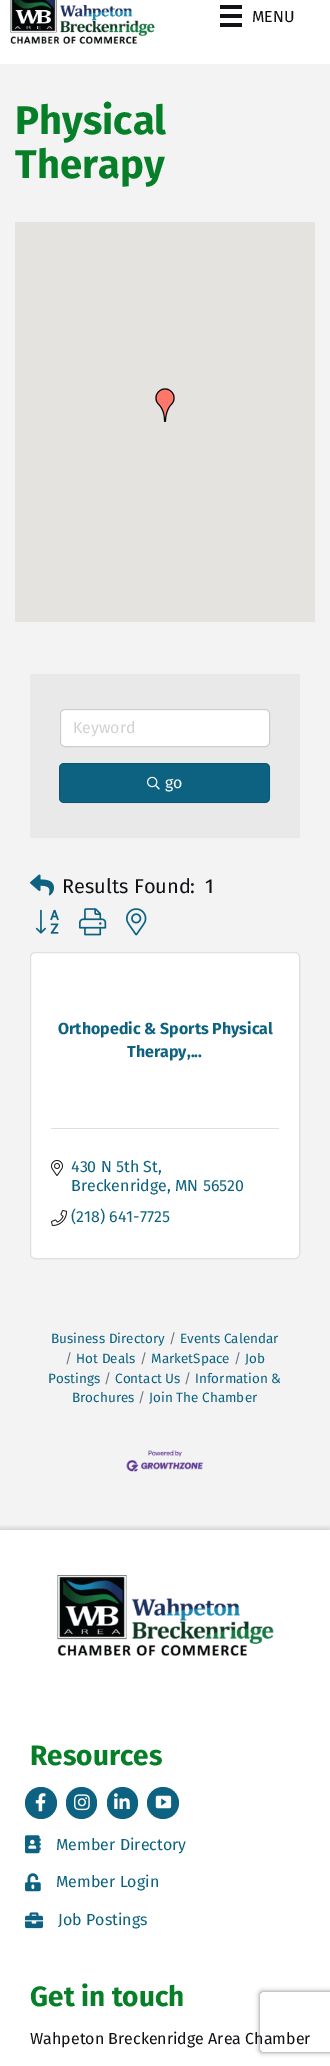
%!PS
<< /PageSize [330 2066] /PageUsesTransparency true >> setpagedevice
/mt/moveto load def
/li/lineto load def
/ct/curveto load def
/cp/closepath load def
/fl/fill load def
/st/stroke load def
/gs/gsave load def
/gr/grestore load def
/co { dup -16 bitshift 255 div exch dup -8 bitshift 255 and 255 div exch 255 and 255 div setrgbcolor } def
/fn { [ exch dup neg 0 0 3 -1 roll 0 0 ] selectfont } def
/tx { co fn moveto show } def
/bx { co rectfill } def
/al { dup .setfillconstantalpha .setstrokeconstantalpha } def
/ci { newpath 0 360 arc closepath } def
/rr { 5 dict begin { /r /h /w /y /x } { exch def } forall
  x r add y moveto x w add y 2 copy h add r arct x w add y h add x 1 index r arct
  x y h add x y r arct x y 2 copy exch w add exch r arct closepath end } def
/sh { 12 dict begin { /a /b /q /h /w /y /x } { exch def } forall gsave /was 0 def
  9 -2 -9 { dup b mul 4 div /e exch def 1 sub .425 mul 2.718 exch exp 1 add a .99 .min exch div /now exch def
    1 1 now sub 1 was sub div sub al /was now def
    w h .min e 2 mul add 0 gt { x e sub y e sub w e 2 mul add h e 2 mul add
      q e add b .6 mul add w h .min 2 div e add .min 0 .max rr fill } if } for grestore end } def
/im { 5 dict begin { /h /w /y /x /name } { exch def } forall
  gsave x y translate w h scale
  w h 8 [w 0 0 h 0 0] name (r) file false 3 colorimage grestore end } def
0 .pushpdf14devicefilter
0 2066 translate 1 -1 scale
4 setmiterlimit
0 0 330 2066 16#FFFFFF bx
(media/1.raw) 10 0 145 44 im
220 5 22 4 16#101215 bx
220 14 22 4 16#101215 bx
220 23 22 4 16#101215 bx
0 64 330 1466 16#F3F3F3 bx
15 222 300 400 16#E5E3DF bx
(media/2.raw) 155 388 20 34 im
30 674 270 164 16#E9E9E9 bx
16#FFFFFF co
61 710 208 36 4 rr fl
0.12 al
16#000000 co
60.5 709.5 209 37 4.5 rr st
1 al
16#0E6281 co
59 763 211 40 5 rr fl
0.12 al
16#000000 co
59.5 763.5 210 39 4.5 rr st
1 al
(media/3.raw) 147 776 13 14 im
(media/4.raw) 30 874 24 22 im
(media/5.raw) 35 909 24 25 im
(media/6.raw) 79 908 28 28 im
(media/7.raw) 126 908 21 28 im
16#FFFFFF co
30 952 270 307 5 rr fl
0.12 al
16#000000 co
30.5 952.5 269 306 4.5 rr st
1 al
51 1128 228 1 16#DFDFDF bx
(media/8.raw) 51 1160 12 16 im
(media/9.raw) 51 1210 16 16 im
(media/10.raw) 126 1450 78 22 im
gs
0 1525 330 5 rectclip
16#101215 co
0 1528 330 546 0 2.5 .15 sh
gr
(media/11.raw) 57 1575 217 81 im
16#0E6281 co
41 1803 16 ci fl
(media/12.raw) 35 1793 11 19 im
66 1787 31 32 15.5 rr fl
(media/13.raw) 74 1794 16 17 im
107 1787 31 32 15.5 rr fl
(media/14.raw) 114 1793 16 16 im
163 1803 16 ci fl
(media/15.raw) 155 1795 17 14 im
(media/16.raw) 25 1835 16 19 im
(media/17.raw) 25 1873 16 19 im
(media/18.raw) 25 1912 18 17 im
gs
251 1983 mt 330 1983 li 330 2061 li 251 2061 li cp 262 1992 mt 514 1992 li 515 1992 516 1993 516 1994 ct 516 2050 li 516 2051 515 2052 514 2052 ct 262 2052 li 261 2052 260 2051 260 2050 ct 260 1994 li 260 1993 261 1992 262 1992 ct cp eoclip newpath
16#808080 co
260 1992 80 60 2 2.5 1 sh
gr
(MENU) 252 22 /FiraSans-Regular 16 16#101215 tx
(Physical) 15 134 /FiraSans-Bold 40 16#077F29 tx
(Therapy) 15 178 /FiraSans-Bold 40 16#077F29 tx
(Keyword) 73 733 /FiraSans-Regular 16 16#D2D2D2 tx
(go) 165 788 /FiraSans-Regular 16 16#FFFFFF tx
(Results Found:) 62 893 /FiraSans-Regular 20 16#101215 tx
(1) 205 893 /FiraSans-Regular 20 16#101215 tx
(Orthopedic & Sports Physical) 58 1034 /FiraSans-Bold 16 16#0E6281 tx
(Therapy,...) 127 1057 /FiraSans-Bold 16 16#0E6281 tx
(430 N 5th St,) 71 1172 /FiraSans-Regular 16 16#0E6281 tx
(Breckenridge, MN 56520) 71 1191 /FiraSans-Regular 16 16#0E6281 tx
(\(218\) 641-7725) 71 1222 /FiraSans-Regular 16 16#0E6281 tx
(Business Directory) 51 1343 /FiraSans-Regular 13.5 16#0E6281 tx
(/) 169 1343 /FiraSans-Regular 13.5 16#6C757D tx
(Events Calendar) 180 1343 /FiraSans-Regular 13.5 16#0E6281 tx
(/) 234 1363 /FiraSans-Regular 13.5 16#6C757D tx
(Job) 245 1363 /FiraSans-Regular 13.5 16#0E6281 tx
(Postings) 48 1383 /FiraSans-Regular 13.5 16#0E6281 tx
(/) 65 1363 /FiraSans-Regular 13.5 16#6C757D tx
(Hot Deals) 76 1363 /FiraSans-Regular 13.5 16#0E6281 tx
(/) 140 1363 /FiraSans-Regular 13.5 16#6C757D tx
(MarketSpace) 151 1363 /FiraSans-Regular 13.5 16#0E6281 tx
(/) 184 1383 /FiraSans-Regular 13.5 16#6C757D tx
(Information &) 195 1383 /FiraSans-Regular 13.5 16#0E6281 tx
(Brochures) 72 1402 /FiraSans-Regular 13.5 16#0E6281 tx
(/) 104 1383 /FiraSans-Regular 13.5 16#6C757D tx
(Contact Us) 115 1383 /FiraSans-Regular 13.5 16#0E6281 tx
(/) 138 1402 /FiraSans-Regular 13.5 16#6C757D tx
(Join The Chamber) 149 1402 /FiraSans-Regular 13.5 16#0E6281 tx
(Resources) 30 1765 /FiraSans-Bold 28 16#077F29 tx
(Member Directory) 56 1850 /FiraSans-Regular 16 16#0E6281 tx
(Member Login) 56 1887 /FiraSans-Regular 16 16#0E6281 tx
(Job Postings) 58 1925 /FiraSans-Regular 16 16#0E6281 tx
(Get in touch) 30 2006 /FiraSans-Bold 28 16#077F29 tx
(Wahpeton Breckenridge Area Chamber) 30 2044 /FiraSans-Regular 16 16#101215 tx
.poppdf14devicefilter showpage
